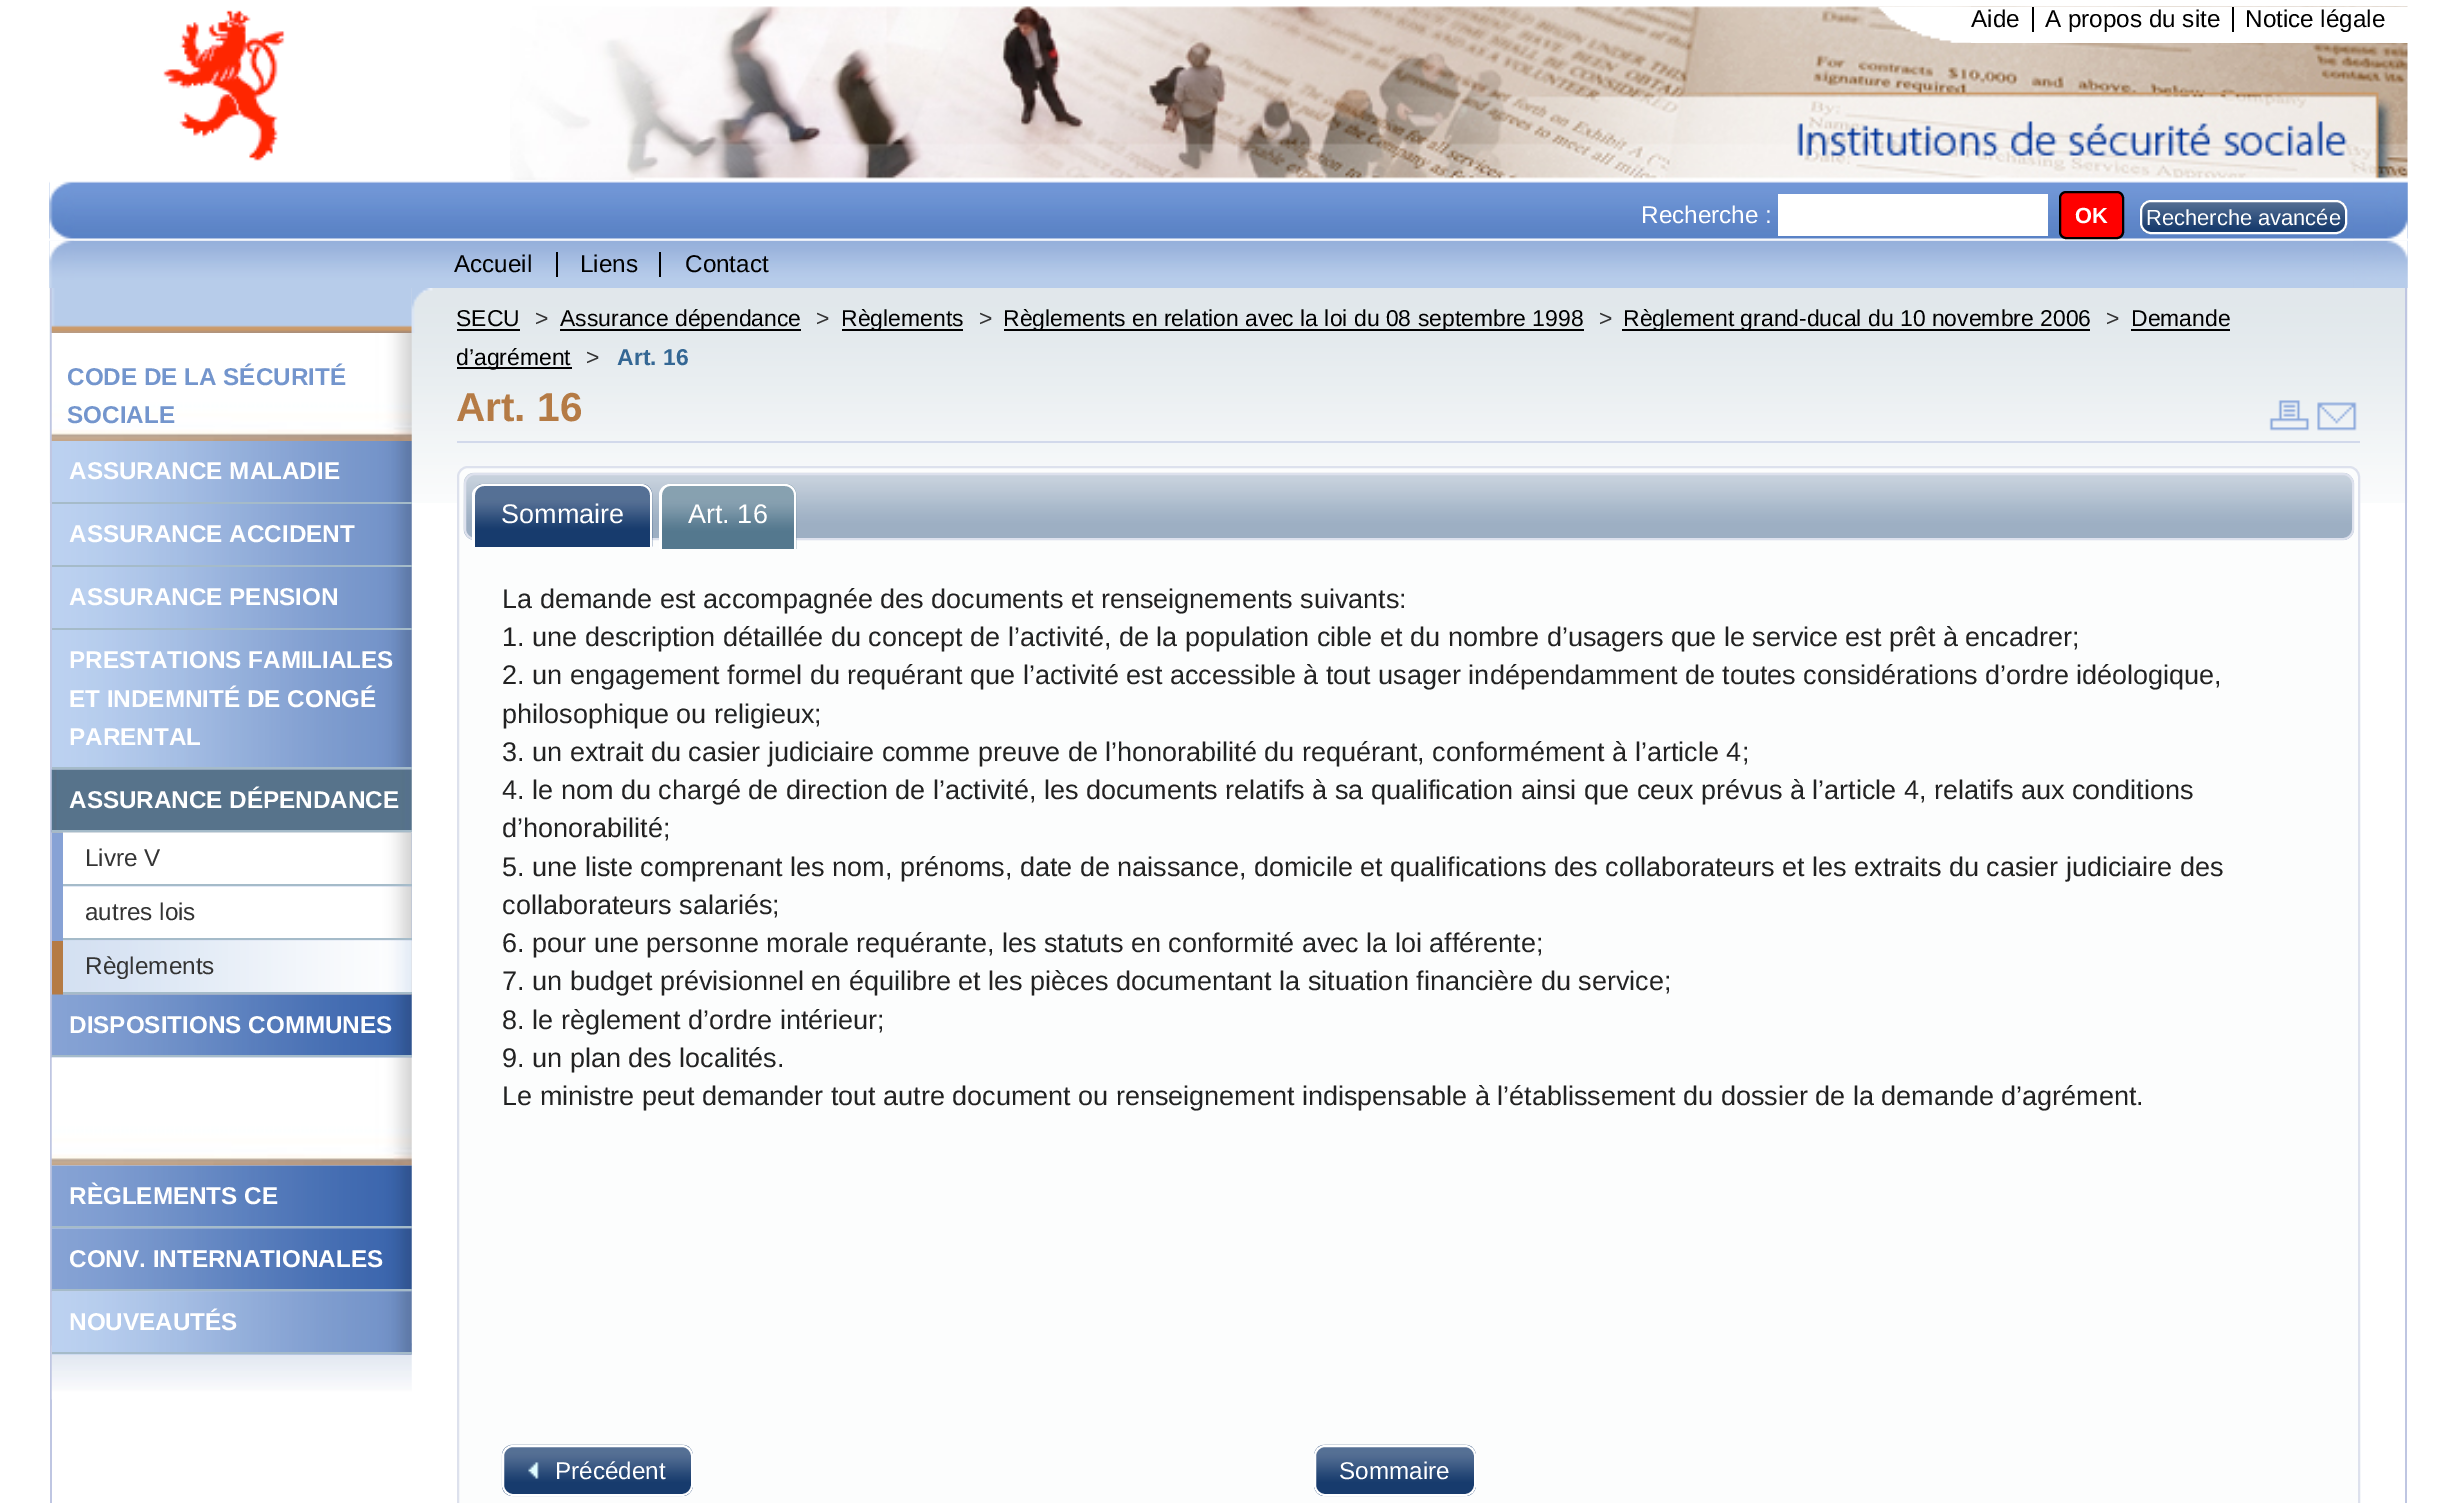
%!PS
<< /PageSize [2457 1503] >> setpagedevice
/mt/moveto load def
/li/lineto load def
/ct/curveto load def
/cp/closepath load def
/fl/fill load def
/st/stroke load def
/gs/gsave load def
/gr/grestore load def
/lw/setlinewidth load def
/co { dup -16 bitshift 255 div exch dup -8 bitshift 255 and 255 div exch 255 and 255 div setrgbcolor } def
/fn { [ exch dup neg 0 0 3 -1 roll 0 0 ] selectfont } def
/tx { co fn moveto show } def
/bx { co rectfill } def
/rr { 5 dict begin { /r /h /w /y /x } { exch def } forall
  x r add y moveto x w add y 2 copy h add r arct x w add y h add x 1 index r arct
  x y h add x y r arct x y 2 copy exch w add exch r arct closepath end } def
/im { 5 dict begin { /h /w /y /x /name } { exch def } forall
  gsave x y translate w h scale
  w h 8 [w 0 0 h 0 0] name (r) file false 3 colorimage grestore end } def
0 1503 translate 1 -1 scale
4 setmiterlimit
0 0 2457 1503 16#FFFFFF bx
(media/1.raw) 510 6 1898 174 im
(media/2.raw) 163 10 122 151 im
(media/3.raw) 1878 6 93 37 im
1971 7 437 36 16#FFFFFF bx
2032 7 2 25 16#000000 bx
2232 7 2 25 16#000000 bx
(media/4.raw) 49 181 2359 59 im
(media/8.raw) 49 240 2359 48 im
(media/5.raw) 49 181 26 60 im
1778 194 270 42 16#FFFFFF bx
16#FF0000 co
2060 192 63 46 6 rr gs fl gr
16#000000 co
2 lw
st
(media/6.raw) 2139 200 208 34 im
16#FFFFFF co
2141 201 205 32 10 rr st
(media/7.raw) 2353 181 55 60 im
(media/9.raw) 49 240 26 48 im
556 252 2 25 16#000000 bx
659 252 2 25 16#000000 bx
(media/10.raw) 2353 240 55 48 im
(media/11.raw) 49 288 2359 215 im
2405 288 2 1215 16#BFC6E2 bx
50 288 2 1215 16#BFC6E2 bx
(media/12.raw) 51 288 361 45 im
(media/13.raw) 411 288 22 45 im
(media/14.raw) 51 1343 361 57 im
(media/15.raw) 51 333 361 108 im
(media/16.raw) 52 441 360 61 im
52 502 360 2 16#A5BBC9 bx
(media/17.raw) 52 504 360 61 im
52 565 360 2 16#A5BBC9 bx
(media/17.raw) 52 567 360 61 im
52 628 360 2 16#A5BBC9 bx
(media/18.raw) 52 630 360 140 im
52 767 360 2 16#A5BBC9 bx
(media/19.raw) 51 769 361 64 im
52 830 360 2 16#A5BBC9 bx
52 833 360 108 16#87A2D5 bx
(media/20.raw) 63 832 349 55 im
63 884 349 2 16#A5BBC9 bx
(media/21.raw) 63 886 349 55 im
63 938 349 2 16#A5BBC9 bx
52 941 360 54 16#B57B45 bx
(media/22.raw) 63 940 349 55 im
(media/23.raw) 63 940 349 55 im
63 992 349 2 16#A5BBC9 bx
(media/24.raw) 51 994 361 64 im
52 1055 360 2 16#A5BBC9 bx
(media/25.raw) 51 1057 361 109 im
(media/26.raw) 51 1165 361 64 im
52 1226 360 2 16#A5BBC9 bx
(media/27.raw) 51 1228 361 64 im
52 1289 360 2 16#A5BBC9 bx
(media/28.raw) 52 1291 360 64 im
52 1352 360 2 16#A5BBC9 bx
457 329 63 2 16#000000 bx
560 329 241 2 16#000000 bx
842 329 121 2 16#000000 bx
1004 329 580 2 16#000000 bx
1622 329 468 2 16#000000 bx
2131 329 99 2 16#000000 bx
457 367 115 2 16#000000 bx
457 441 1903 2 16#D2D9EB bx
(media/29.raw) 2269 400 41 31 im
(media/30.raw) 2317 402 40 29 im
16#FCFDFD co
458 467 1901 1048 10 rr gs fl gr
16#DDE1ED co
st
(media/31.raw) 463 472 1891 68 im
465 474 1888 65 10 rr st
16#173B6D co
484 486 mt 641 486 li 646 486 650 490 650 495 ct 650 547 li 475 547 li 475 495 li 475 490 479 486 484 486 ct cp fl
(media/32.raw) 472 483 181 64 im
16#FFFFFF co
484 484 mt 641 484 li 647 484 652 489 652 495 ct 652 547 li 472 547 li 472 495 li 472 489 478 484 484 484 ct cp 484 486 mt 641 486 li 646 486 650 490 650 495 ct 650 547 li 475 547 li 475 495 li 475 490 479 486 484 486 ct cp eofill
(media/33.raw) 659 483 138 66 im
670 484 mt 785 484 li 791 484 796 489 796 495 ct 796 549 li 659 549 li 659 495 li 659 489 664 484 670 484 ct cp 670 486 mt 785 486 li 790 486 794 490 794 495 ct 794 549 li 662 549 li 662 495 li 662 490 666 486 670 486 ct cp eofill
(media/34.raw) 501 1444 192 53 im
503 1446 189 49 10 rr st
(media/35.raw) 528 1462 11 17 im
(media/36.raw) 1314 1444 162 53 im
1315 1446 160 49 10 rr st
(Aide) 1971 27 /LiberationSans-Regular 24.25 16#000000 tx
(A propos du site) 2045 27 /LiberationSans-Regular 24.25 16#000000 tx
(Notice légale) 2245 27 /LiberationSans-Regular 24.25 16#000000 tx
(Recherche :) 1641 223 /LiberationSans-Regular 24.25 16#FFFFFF tx
(OK) 2075 223 /LiberationSans-Bold 21.9 16#FFFFFF tx
(Recherche avancée) 2146 225 /LiberationSans-Regular 21.9 16#FFFFFF tx
(Accueil) 454 272 /LiberationSans-Regular 24.25 16#000000 tx
(Liens) 580 272 /LiberationSans-Regular 24.25 16#000000 tx
(Contact) 685 272 /LiberationSans-Regular 24.25 16#000000 tx
(CODE DE LA SÉCURITÉ) 67 385 /LiberationSans-Bold 24.25 16#7395CD tx
(SOCIALE) 67 423 /LiberationSans-Bold 24.25 16#7395CD tx
(ASSURANCE MALADIE) 69 479 /LiberationSans-Bold 24.25 16#FFFFFF tx
(ASSURANCE ACCIDENT) 69 542 /LiberationSans-Bold 24.25 16#FFFFFF tx
(ASSURANCE PENSION) 69 605 /LiberationSans-Bold 24.25 16#FFFFFF tx
(PRESTATIONS FAMILIALES) 69 668 /LiberationSans-Bold 24.25 16#FFFFFF tx
(ET INDEMNITÉ DE CONGÉ) 69 707 /LiberationSans-Bold 24.25 16#FFFFFF tx
(PARENTAL) 69 745 /LiberationSans-Bold 24.25 16#FFFFFF tx
(ASSURANCE DÉPENDANCE) 69 808 /LiberationSans-Bold 24.25 16#FFFFFF tx
(Livre V) 85 866 /LiberationSans-Regular 24.25 16#343434 tx
(autres lois) 85 920 /LiberationSans-Regular 24.25 16#343434 tx
(Règlements) 85 974 /LiberationSans-Regular 24.25 16#343434 tx
(DISPOSITIONS COMMUNES) 69 1033 /LiberationSans-Bold 24.25 16#FFFFFF tx
(RÈGLEMENTS CE) 69 1204 /LiberationSans-Bold 24.25 16#FFFFFF tx
(CONV. INTERNATIONALES) 69 1267 /LiberationSans-Bold 24.25 16#FFFFFF tx
(NOUVEAUTÉS) 69 1330 /LiberationSans-Bold 24.25 16#FFFFFF tx
(SECU) 456 326 /LiberationSans-Regular 22.95 16#000000 tx
(>) 535 326 /LiberationSans-Regular 22.95 16#343434 tx
(Assurance dépendance) 560 326 /LiberationSans-Regular 22.95 16#000000 tx
(>) 816 326 /LiberationSans-Regular 22.95 16#343434 tx
(Règlements) 841 326 /LiberationSans-Regular 22.95 16#000000 tx
(>) 979 326 /LiberationSans-Regular 22.95 16#343434 tx
(Règlements en relation avec la loi du 08 septembre 1998) 1003 326 /LiberationSans-Regular 22.95 16#000000 tx
(>) 1599 326 /LiberationSans-Regular 22.95 16#343434 tx
(Règlement grand-ducal du 10 novembre 2006) 1623 326 /LiberationSans-Regular 22.95 16#000000 tx
(>) 2106 326 /LiberationSans-Regular 22.95 16#343434 tx
(Demande) 2131 326 /LiberationSans-Regular 22.95 16#000000 tx
(d’agrément) 456 365 /LiberationSans-Regular 22.95 16#000000 tx
(>) 586 365 /LiberationSans-Regular 22.95 16#343434 tx
(Art. 16) 617 365 /LiberationSans-Bold 22.95 16#346794 tx
(Art. 16) 456 421 /LiberationSans-Bold 40.5 16#B57B45 tx
(Sommaire) 501 523 /LiberationSans-Regular 27 16#FFFFFF tx
(Art. 16) 688 523 /LiberationSans-Regular 27 16#FFFFFF tx
(La demande est accompagnée des documents et renseignements suivants:) 502 608 /LiberationSans-Regular 27 16#222222 tx
(1. une description détaillée du concept de l’activité, de la population cible et du nombre d’usagers que le service est prêt à encadrer;) 502 646 /LiberationSans-Regular 27 16#222222 tx
(2. un engagement formel du requérant que l’activité est accessible à tout usager indépendamment de toutes considérations d’ordre idéologique,) 502 684 /LiberationSans-Regular 27 16#222222 tx
(philosophique ou religieux;) 502 723 /LiberationSans-Regular 27 16#222222 tx
(3. un extrait du casier judiciaire comme preuve de l’honorabilité du requérant, conformément à l’article 4;) 502 761 /LiberationSans-Regular 27 16#222222 tx
(4. le nom du chargé de direction de l’activité, les documents relatifs à sa qualification ainsi que ceux prévus à l’article 4, relatifs aux conditions) 502 799 /LiberationSans-Regular 27 16#222222 tx
(d’honorabilité;) 502 837 /LiberationSans-Regular 27 16#222222 tx
(5. une liste comprenant les nom, prénoms, date de naissance, domicile et qualifications des collaborateurs et les extraits du casier judiciaire des) 502 876 /LiberationSans-Regular 27 16#222222 tx
(collaborateurs salariés;) 502 914 /LiberationSans-Regular 27 16#222222 tx
(6. pour une personne morale requérante, les statuts en conformité avec la loi afférente;) 502 952 /LiberationSans-Regular 27 16#222222 tx
(7. un budget prévisionnel en équilibre et les pièces documentant la situation financière du service;) 502 990 /LiberationSans-Regular 27 16#222222 tx
(8. le règlement d’ordre intérieur;) 502 1029 /LiberationSans-Regular 27 16#222222 tx
(9. un plan des localités.) 502 1067 /LiberationSans-Regular 27 16#222222 tx
(Le ministre peut demander tout autre document ou renseignement indispensable à l’établissement du dossier de la demande d’agrément.) 502 1105 /LiberationSans-Regular 27 16#222222 tx
(Précédent) 555 1479 /LiberationSans-Regular 24.25 16#FFFFFF tx
(Sommaire) 1339 1479 /LiberationSans-Regular 24.25 16#FFFFFF tx
showpage
